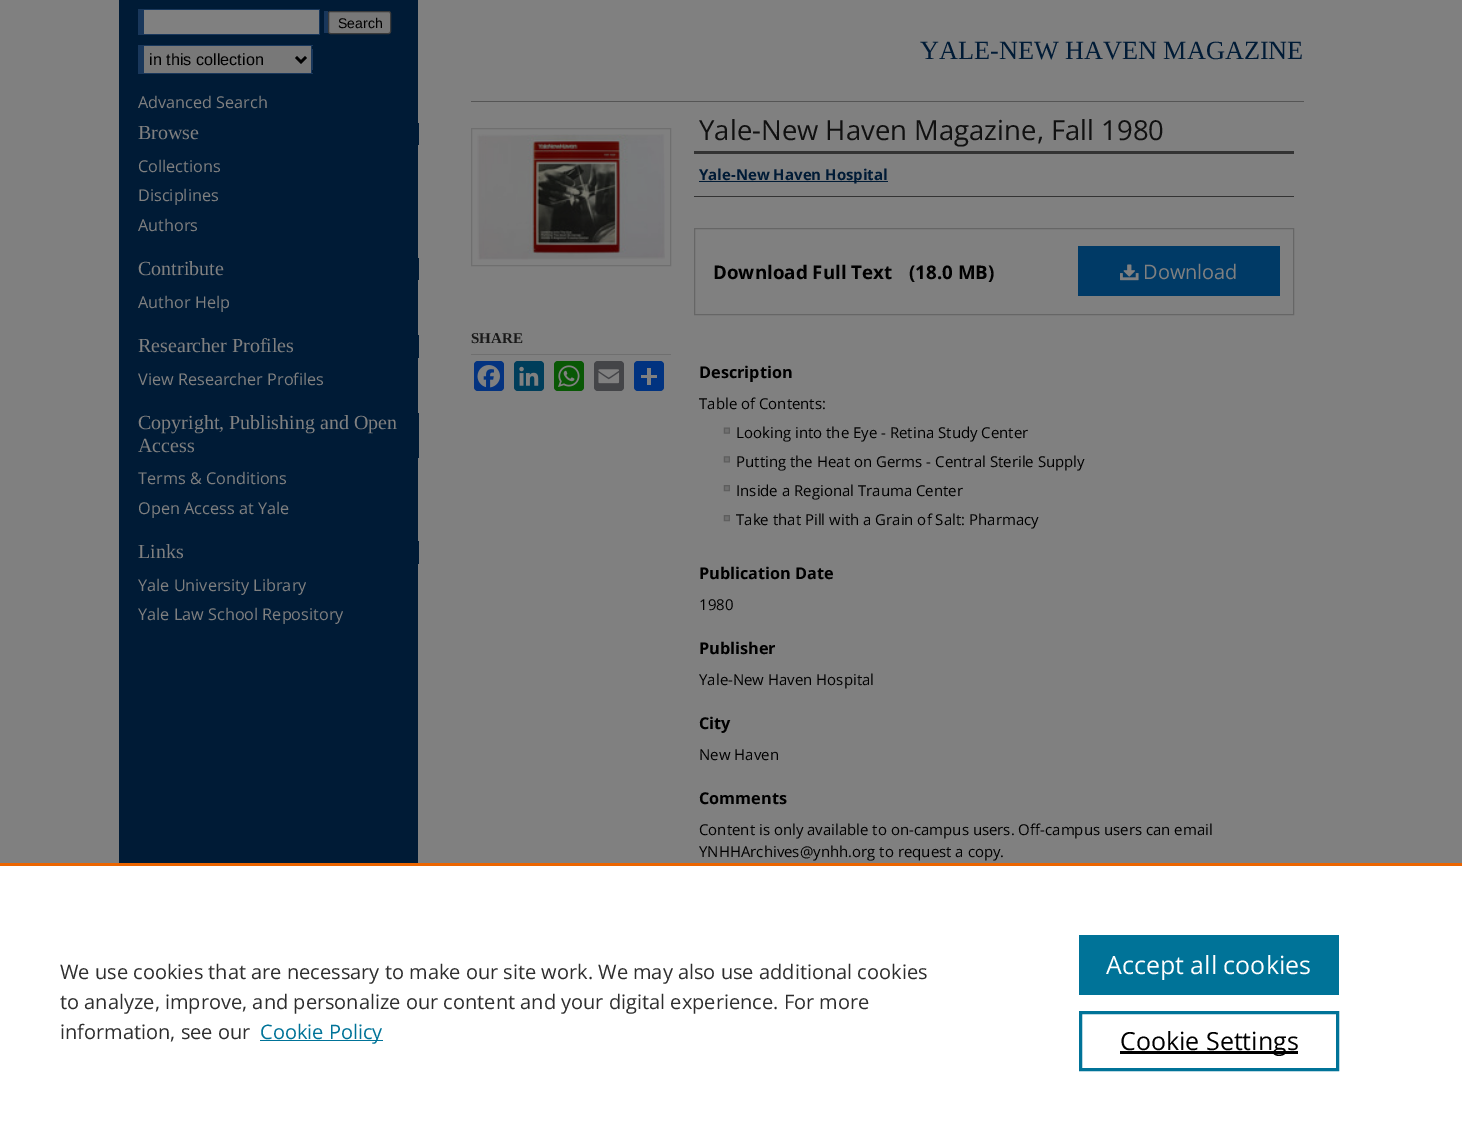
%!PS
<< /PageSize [1462 1137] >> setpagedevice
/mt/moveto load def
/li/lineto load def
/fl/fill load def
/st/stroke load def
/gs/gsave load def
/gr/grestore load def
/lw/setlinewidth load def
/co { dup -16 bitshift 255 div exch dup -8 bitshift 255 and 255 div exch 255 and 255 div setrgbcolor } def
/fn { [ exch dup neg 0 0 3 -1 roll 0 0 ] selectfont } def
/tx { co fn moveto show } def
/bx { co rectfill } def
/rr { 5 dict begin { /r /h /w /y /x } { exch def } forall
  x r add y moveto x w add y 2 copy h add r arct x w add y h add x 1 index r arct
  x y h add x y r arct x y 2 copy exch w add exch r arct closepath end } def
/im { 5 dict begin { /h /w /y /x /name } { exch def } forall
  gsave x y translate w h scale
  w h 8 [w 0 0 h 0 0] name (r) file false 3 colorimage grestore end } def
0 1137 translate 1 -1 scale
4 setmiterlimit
0 0 1462 1137 16#808080 bx
119 0 299 863 16#001B36 bx
138 9 182 26 16#19375B bx
324 11 4 22 16#19375B bx
144 10 175 24 16#808080 bx
16#787878 co
328.5 11.5 62 22 2 rr gs fl gr
16#3B3B3B co
st
312 49 1 21 16#19375B bx
144 46 167 27 16#787878 bx
138 45 175 1 16#19375B bx
311 45 1 29 16#19375B bx
138 73 175 1 16#19375B bx
138 45 6 29 16#19375B bx
16#000000 co
2.5 lw
296 57 mt 301 62 li 306 57 li st
418 123 1 22 16#001B36 bx
418 258 1 22 16#001B36 bx
418 335 1 23 16#001B36 bx
418 413 1 45 16#001B36 bx
418 541 1 23 16#001B36 bx
16#6F6F6F co
1 lw
471.5 128.5 199 137 rectstroke
(media/1.raw) 477 134 188 126 im
471 354 200 1 16#6F6F6F bx
16#043380 co
474 361 30 30 4 rr fl
(media/2.raw) 477 365 23 23 im
16#003E5B co
514 361 30 30 4 rr fl
(media/3.raw) 519 366 20 20 im
16#095805 co
554 361 30 30 4 rr fl
(media/4.raw) 558 365 22 22 im
16#444548 co
594 361 30 30 4 rr fl
(media/5.raw) 598 369 22 15 im
16#013380 co
634 361 30 30 4 rr fl
647 368 4 17 16#808080 bx
641 375 16 3 16#808080 bx
471 101 833 1 16#555555 bx
694 151 600 3 16#333333 bx
694 196 600 1 16#333333 bx
699 181 189 1 16#001B36 bx
16#666666 co
694.5 228.5 599 86 rectstroke
1078 246 202 50 16#003A66 bx
(media/6.raw) 1120 264 19 17 im
(media/7.raw) 723 427 7 7 im
(media/8.raw) 723 456 7 7 im
(media/9.raw) 723 485 7 7 im
(media/9.raw) 723 515 7 7 im
0 866 1462 271 16#FFFFFF bx
0 863 1462 3 16#EB6500 bx
260 1040 123 1 16#007398 bx
1079 935 260 60 16#007398 bx
3 lw
1080.5 1012.5 257 57 rectstroke
1120 1051 178 3 16#000000 bx
(Search) 338 28 /LiberationSans-Regular 14 16#000000 tx
(in this collection) 149 65 /LiberationSans-Regular 16.25 16#000000 tx
(Advanced Search) 138 108 /OpenSans-Regular 16.25 16#808080 tx
(Browse) 138 139 /LiberationSerif-Regular 20 16#808080 tx
(Collections) 138 172 /OpenSans-Regular 16.25 16#808080 tx
(Disciplines) 138 201 /OpenSans-Regular 16.25 16#808080 tx
(Authors) 138 231 /OpenSans-Regular 16.25 16#808080 tx
(Contribute) 138 275 /LiberationSerif-Regular 20 16#808080 tx
(Author Help) 138 308 /OpenSans-Regular 16.25 16#808080 tx
(Researcher Profiles) 138 352 /LiberationSerif-Regular 20 16#808080 tx
(View Researcher Profiles) 138 385 /OpenSans-Regular 16.25 16#808080 tx
(Copyright, Publishing and Open) 138 429 /LiberationSerif-Regular 20 16#808080 tx
(Access) 138 452 /LiberationSerif-Regular 20 16#808080 tx
(Terms & Conditions) 138 484 /OpenSans-Regular 16.25 16#808080 tx
(Open Access at Yale) 138 514 /OpenSans-Regular 16.25 16#808080 tx
(Links) 138 558 /LiberationSerif-Regular 20 16#808080 tx
(Yale University Library) 138 591 /OpenSans-Regular 16.25 16#808080 tx
(Yale Law School Repository) 138 620 /OpenSans-Regular 16.25 16#808080 tx
(YALE-NEW HAVEN MAGAZINE) 920 59 /LiberationSerif-Regular 26.25 16#001B36 tx
(SHARE) 471 343 /LiberationSerif-Bold 15 16#1A1A1A tx
(Yale-New Haven Magazine, Fall 1980) 699 140 /OpenSans-Regular 27.5 16#111111 tx
(Yale-New Haven Hospital) 699 180 /OpenSans-Bold 15 16#001B36 tx
(Download Full Text) 713 279 /OpenSans-Bold 18.75 16#000000 tx
(\(18.0 MB\)) 909 279 /OpenSans-Bold 18.75 16#000000 tx
(Download) 1143 279 /OpenSans-Regular 20 16#808080 tx
(Description) 699 378 /OpenSans-Bold 16.25 16#000000 tx
(Table of Contents:) 699 409 /OpenSans-Regular 15 16#000000 tx
(Looking into the Eye - Retina Study Center) 736 438 /OpenSans-Regular 15 16#000000 tx
(Putting the Heat on Germs - Central Sterile Supply) 736 467 /OpenSans-Regular 15 16#000000 tx
(Inside a Regional Trauma Center) 736 496 /OpenSans-Regular 15 16#000000 tx
(Take that Pill with a Grain of Salt: Pharmacy) 736 525 /OpenSans-Regular 15 16#000000 tx
(Publication Date) 699 579 /OpenSans-Bold 16.25 16#000000 tx
(1980) 699 610 /OpenSans-Regular 15 16#000000 tx
(Publisher) 699 654 /OpenSans-Bold 16.25 16#000000 tx
(Yale-New Haven Hospital) 699 685 /OpenSans-Regular 15 16#000000 tx
(City) 699 729 /OpenSans-Bold 16.25 16#000000 tx
(New Haven) 699 760 /OpenSans-Regular 15 16#000000 tx
(Comments) 699 804 /OpenSans-Bold 16.25 16#000000 tx
(Content is only available to on-campus users. Off-campus users can email) 699 835 /OpenSans-Regular 15 16#000000 tx
(YNHHArchives@ynhh.org to request a copy.) 699 857 /OpenSans-Regular 15 16#000000 tx
(We use cookies that are necessary to make our site work. We may also use additional cookies) 60 979 /OpenSans-Regular 20 16#2E2E2E tx
(to analyze, improve, and personalize our content and your digital experience. For more) 60 1009 /OpenSans-Regular 20 16#2E2E2E tx
(information, see our) 60 1039 /OpenSans-Regular 20 16#2E2E2E tx
(Cookie Policy) 260 1039 /OpenSans-Regular 20 16#007398 tx
(Accept all cookies) 1106 974 /OpenSans-Regular 25 16#FFFFFF tx
(Cookie Settings) 1120 1050 /OpenSans-Regular 25 16#000000 tx
showpage
